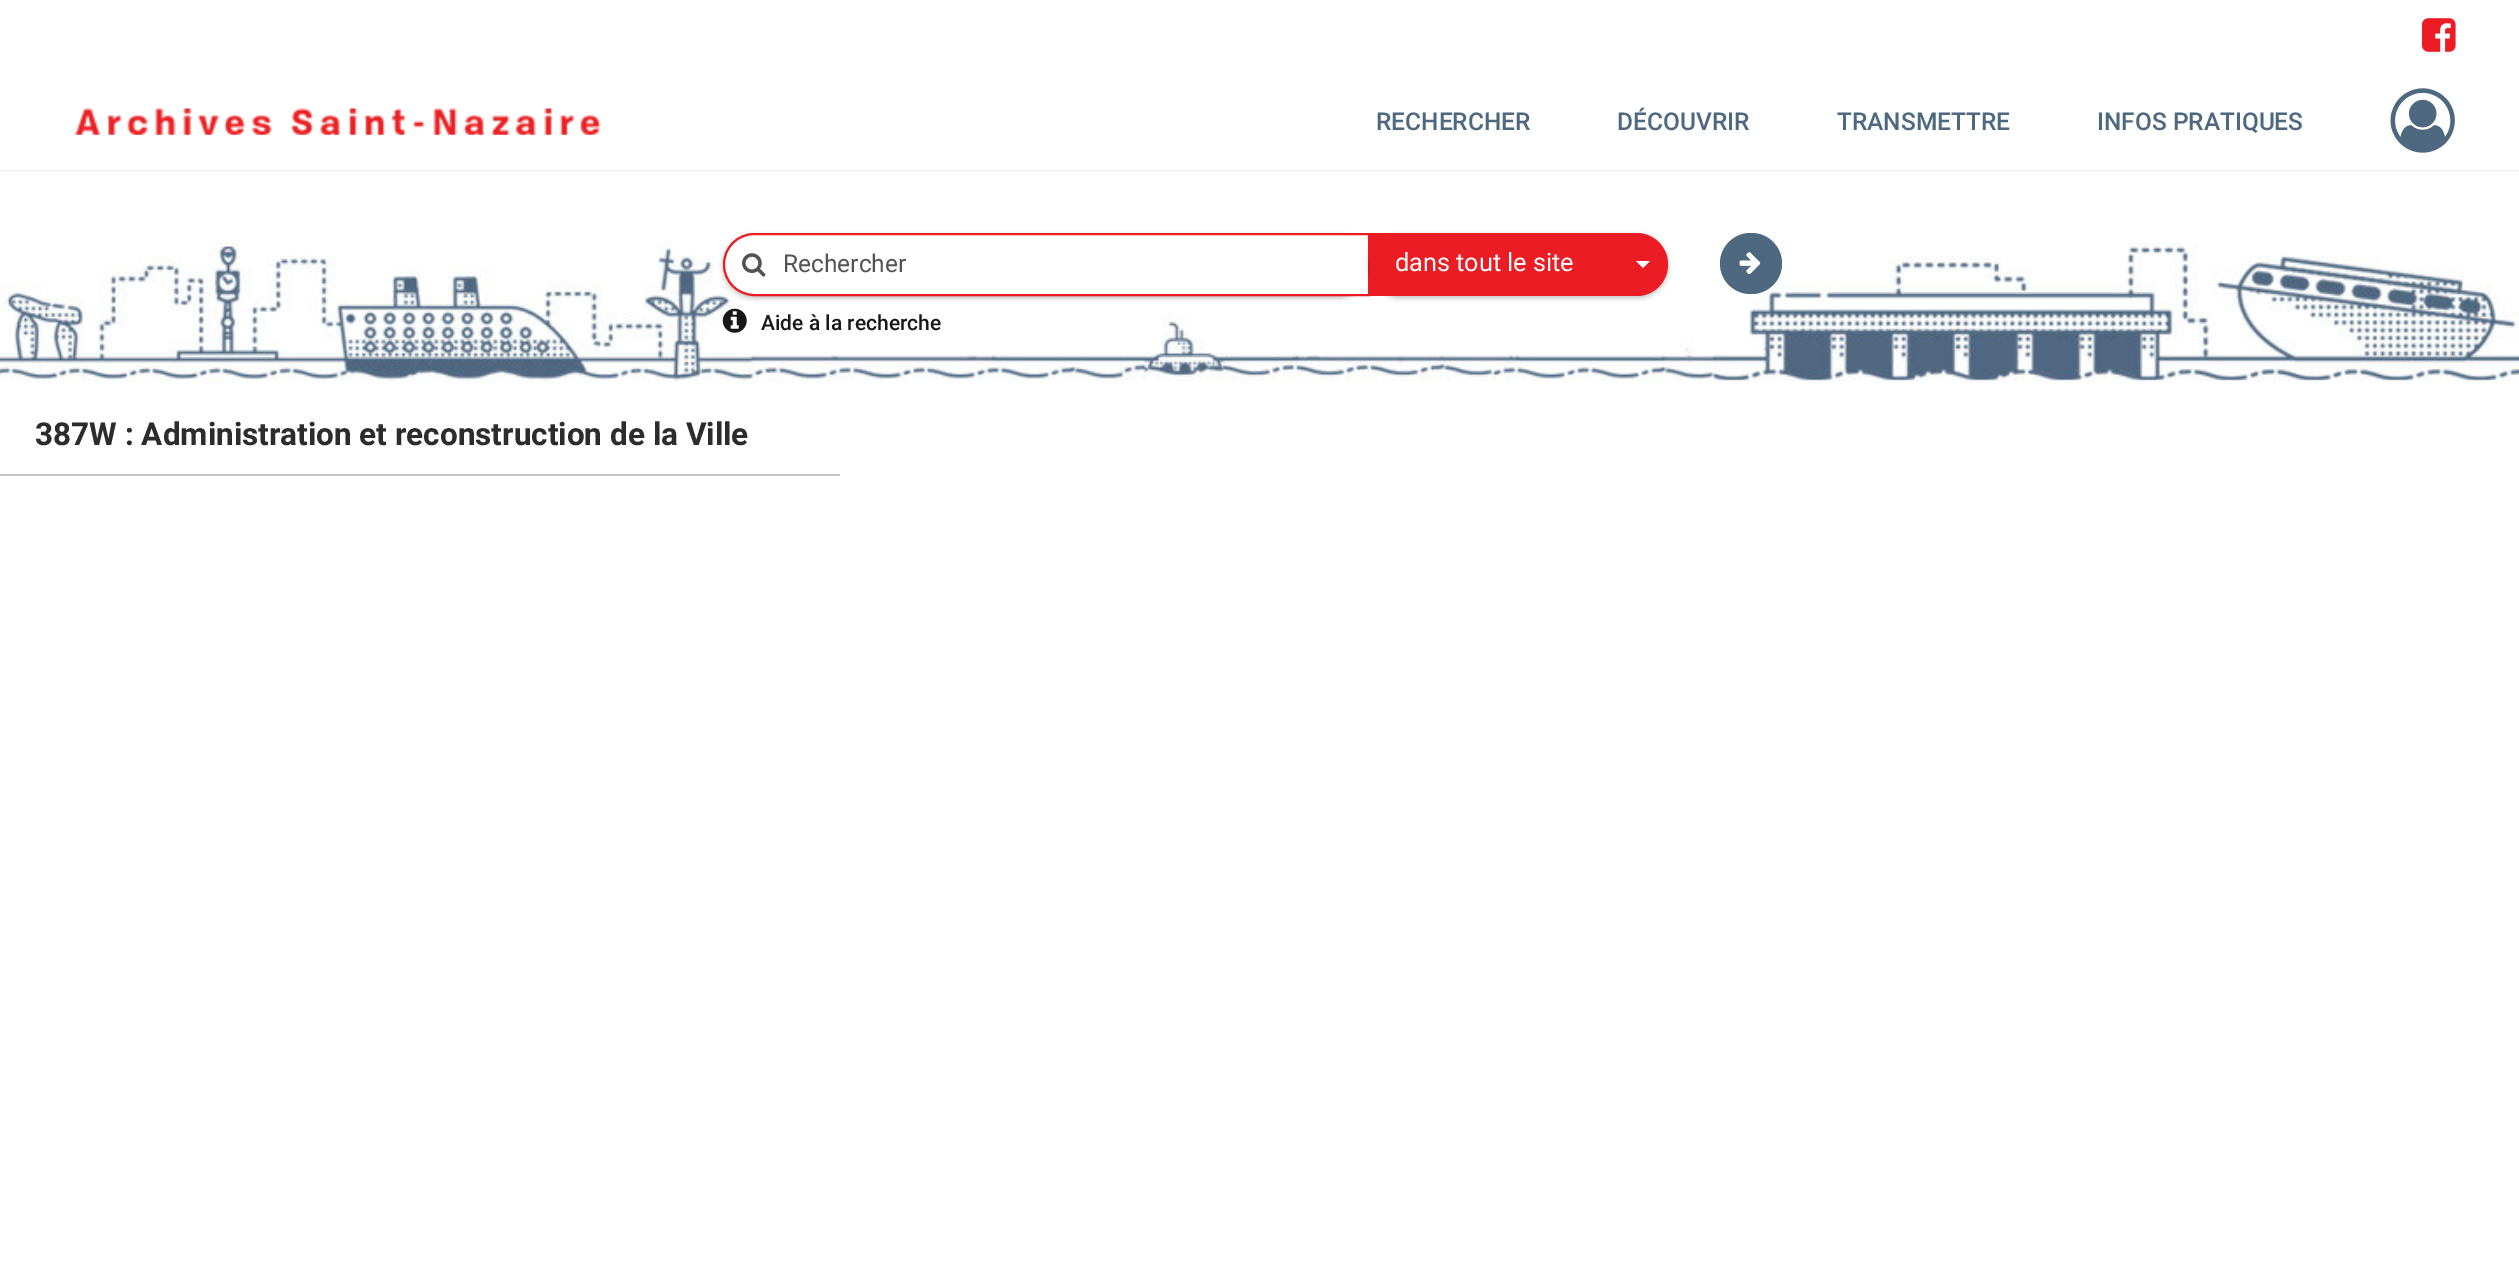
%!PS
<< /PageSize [2519 1264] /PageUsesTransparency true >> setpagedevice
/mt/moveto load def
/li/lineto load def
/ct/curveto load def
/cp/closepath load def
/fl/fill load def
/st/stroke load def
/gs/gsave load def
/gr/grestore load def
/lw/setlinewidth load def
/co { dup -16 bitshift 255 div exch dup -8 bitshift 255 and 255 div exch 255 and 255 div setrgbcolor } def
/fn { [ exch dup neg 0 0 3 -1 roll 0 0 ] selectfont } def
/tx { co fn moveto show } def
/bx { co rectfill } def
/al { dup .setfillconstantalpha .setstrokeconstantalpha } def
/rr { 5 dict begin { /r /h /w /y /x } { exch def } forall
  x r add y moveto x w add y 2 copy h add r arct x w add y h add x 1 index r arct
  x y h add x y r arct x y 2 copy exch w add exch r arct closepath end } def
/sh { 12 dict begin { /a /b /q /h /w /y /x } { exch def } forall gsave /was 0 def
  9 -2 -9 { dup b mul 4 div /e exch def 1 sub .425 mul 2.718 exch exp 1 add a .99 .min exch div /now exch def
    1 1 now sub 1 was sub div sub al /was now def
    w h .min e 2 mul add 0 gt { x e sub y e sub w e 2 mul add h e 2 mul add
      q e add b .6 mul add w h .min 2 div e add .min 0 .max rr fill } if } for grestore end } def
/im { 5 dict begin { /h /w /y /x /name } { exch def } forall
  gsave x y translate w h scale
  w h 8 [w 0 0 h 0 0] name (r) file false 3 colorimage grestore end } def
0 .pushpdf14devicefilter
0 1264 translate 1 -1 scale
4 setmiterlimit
0 0 2519 1264 16#FFFFFF bx
(media/1.raw) 2422 18 34 34 im
0 170 2519 2 16#F2F1F1 bx
(media/2.raw) 74 108 527 27 im
(media/3.raw) 2390 88 65 65 im
(media/4.raw) 0 171 2519 211 im
16#000000 co
723 235 647 63 31.5 2.5 .25 sh
16#FFFFFF co
754.5 234 mt 1369 234 li 1369 295 li 754.5 295 li 737.5 295 724 281.5 724 264.5 ct 724 247.5 737.5 234 754.5 234 ct cp gs fl gr
16#EC1C24 co
2 lw
st
(media/5.raw) 742 253 24 24 im
16#000000 co
1370 235 298 63 31.5 2.5 .25 sh
16#EC1C24 co
1370 233 mt 1636.5 233 li 1654 233 1668 247 1668 264.5 ct 1668 282 1654 296 1636.5 296 ct 1370 296 li cp fl
16#FFFFFF co
1636 261 mt 1650 261 li 1643 268 li cp fl
16#4E687F co
1720 233 62 61 30.5 rr fl
(media/6.raw) 1739 252 22 23 im
(media/7.raw) 722 308 25 25 im
0 474 840 2 16#C9C5C5 bx
(RECHERCHER) 1376 130 /Roboto-Medium 24.5 16#4E687F tx
(DÉCOUVRIR) 1617 130 /Roboto-Medium 24.5 16#4E687F tx
(TRANSMETTRE) 1837 130 /Roboto-Medium 24.5 16#4E687F tx
(INFOS PRATIQUES) 2097 130 /Roboto-Medium 24.5 16#4E687F tx
(Rechercher) 783 272 /Roboto-Regular 24.5 16#565252 tx
(dans tout le site) 1395 271 /Roboto-Regular 25.25 16#FFFFFF tx
(Aide à la recherche) 761 330 /Roboto-Medium 21 16#181819 tx
(387W : Administration et reconstruction de la Ville) 35 445 /Roboto-Bold 31.5 16#2D2B2B tx
.poppdf14devicefilter showpage
